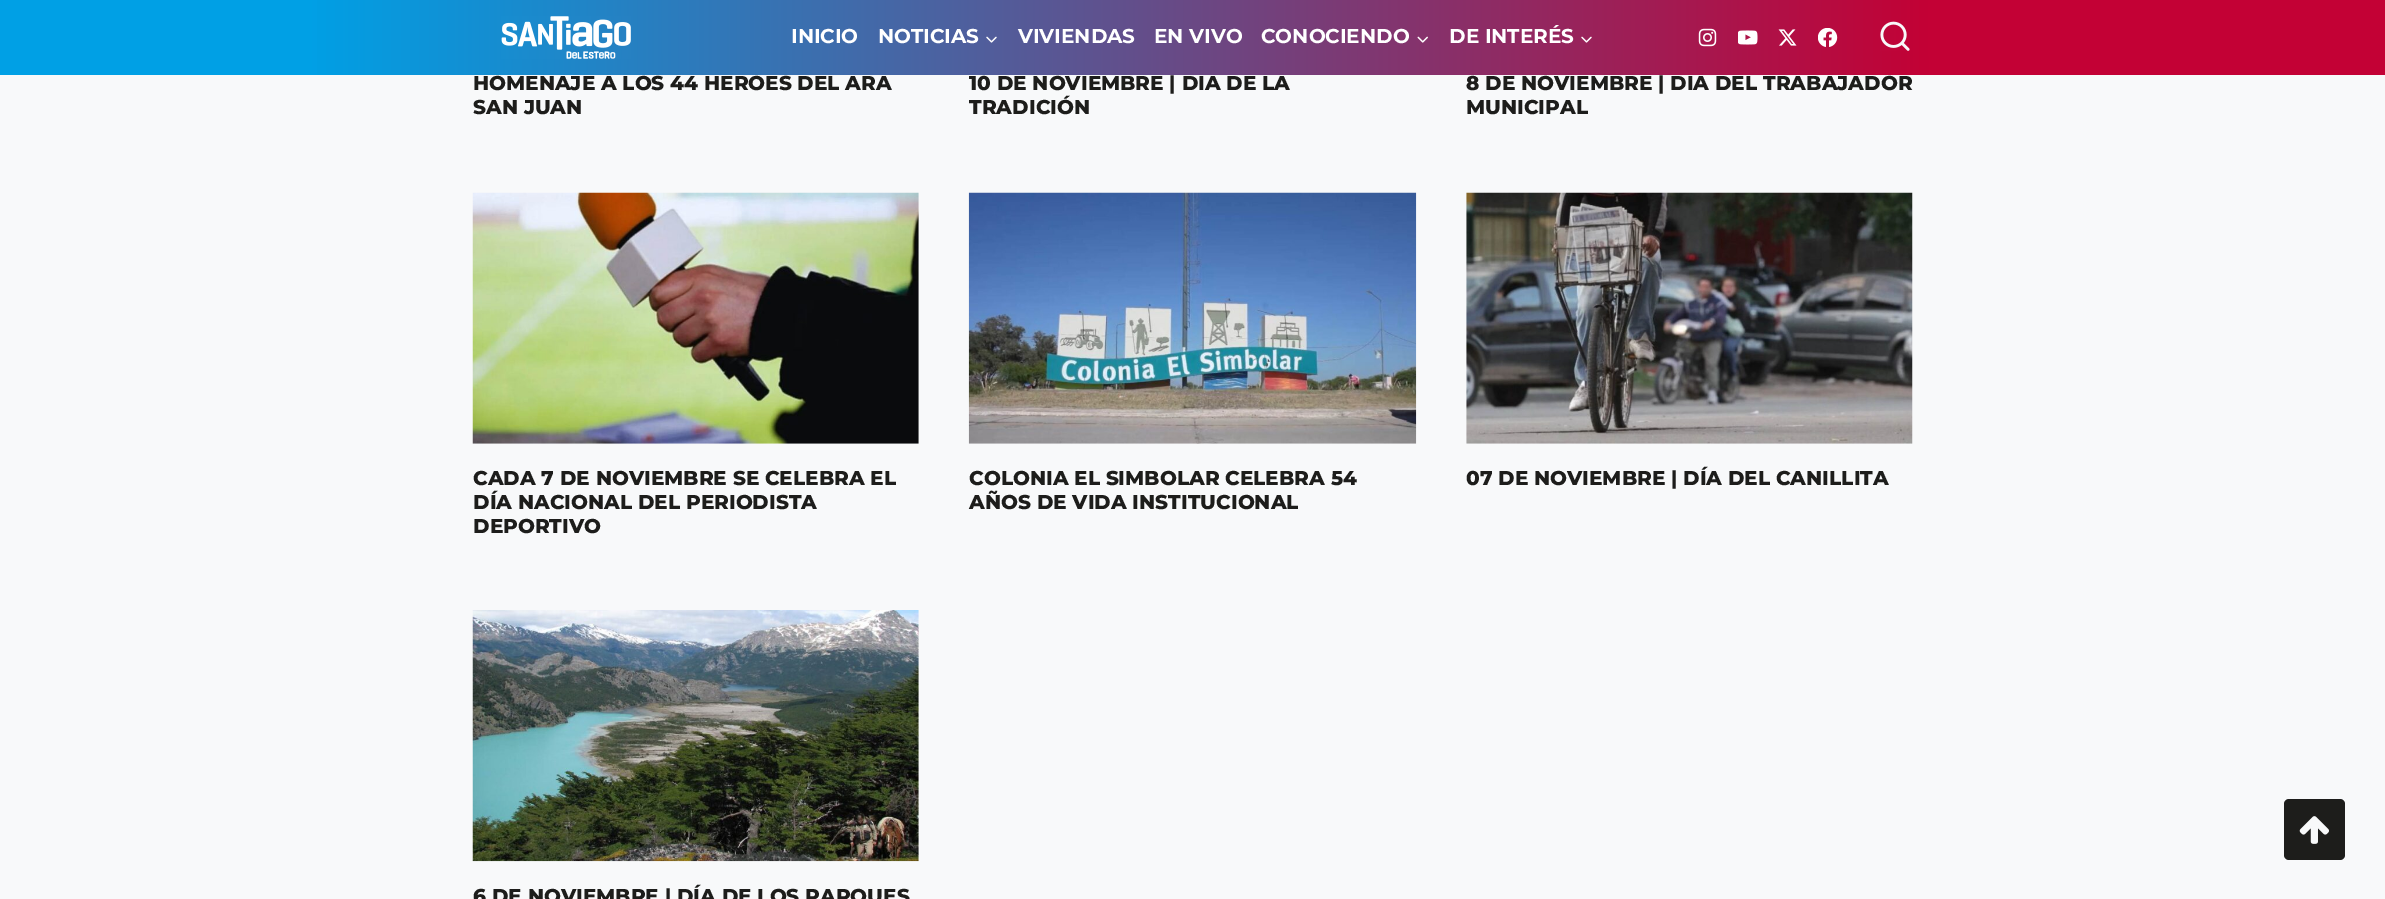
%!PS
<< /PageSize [2385 899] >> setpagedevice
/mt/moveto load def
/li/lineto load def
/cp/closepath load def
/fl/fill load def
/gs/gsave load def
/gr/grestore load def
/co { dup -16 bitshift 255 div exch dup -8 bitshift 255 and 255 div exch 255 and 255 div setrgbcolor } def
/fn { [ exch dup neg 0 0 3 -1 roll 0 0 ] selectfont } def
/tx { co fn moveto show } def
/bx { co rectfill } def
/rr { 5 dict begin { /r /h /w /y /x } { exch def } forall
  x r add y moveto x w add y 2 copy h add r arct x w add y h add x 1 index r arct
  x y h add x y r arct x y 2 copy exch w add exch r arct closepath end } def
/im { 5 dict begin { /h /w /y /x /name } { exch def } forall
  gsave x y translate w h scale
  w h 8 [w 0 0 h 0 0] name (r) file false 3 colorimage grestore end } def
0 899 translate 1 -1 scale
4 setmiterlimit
0 0 2385 899 16#F8F9FA bx
(media/10.raw) 472 192 447 252 im
(media/11.raw) 968 192 449 252 im
(media/12.raw) 1466 192 447 252 im
(media/13.raw) 472 610 447 252 im
16#1D1D1B co
2284 799 61 61 5 rr fl
(media/14.raw) 2299 816 30 28 im
(HOMENAJE A LOS 44 HÉROES DEL ARA) 473 90 /Montserrat-ExtraBold 20 16#1D1D1B tx
(SAN JUAN) 473 114 /Montserrat-ExtraBold 20 16#1D1D1B tx
(10 DE NOVIEMBRE | DÍA DE LA) 969 90 /Montserrat-ExtraBold 20 16#1D1D1B tx
(TRADICIÓN) 969 114 /Montserrat-ExtraBold 20 16#1D1D1B tx
(8 DE NOVIEMBRE | DÍA DEL TRABAJADOR) 1466 90 /Montserrat-ExtraBold 20 16#1D1D1B tx
gs 0 0 mt 2385 0 li 2385 75 li 0 75 li cp clip newpath
<< /ShadingType 2 /ColorSpace /DeviceRGB /Coords [0 38 2385 37] /Extend [true true] /Function << /FunctionType 3 /Domain [0 1] /Functions [<< /FunctionType 2 /Domain [0 1] /C0 [0 .627 .898] /C1 [0 .627 .898] /N 1 >> << /FunctionType 2 /Domain [0 1] /C0 [0 .627 .898] /C1 [.765 .004 .208] /N 1 >> << /FunctionType 2 /Domain [0 1] /C0 [.765 .004 .208] /C1 [.765 .004 .208] /N 1 >>] /Bounds [.13 .81] /Encode [0 1 0 1 0 1] >> >> shfill gr
(media/9.raw) 1880 21 30 30 im
(media/4.raw) 1581 36 11 7 im
(DE INTERÉS) 1449 43 /Montserrat-Bold 20 16#FFFFFF tx
(media/3.raw) 1417 36 11 7 im
(CONOCIENDO) 1261 43 /Montserrat-Bold 20 16#FFFFFF tx
(EN VIVO) 1154 43 /Montserrat-Bold 20 16#FFFFFF tx
(VIVIENDAS) 1018 43 /Montserrat-Bold 20 16#FFFFFF tx
(media/2.raw) 986 36 11 7 im
(NOTICIAS) 878 43 /Montserrat-Bold 20 16#FFFFFF tx
(INICIO) 791 43 /Montserrat-Bold 20 16#FFFFFF tx
(media/8.raw) 1818 28 20 19 im
(media/7.raw) 1778 29 19 17 im
(media/6.raw) 1738 30 20 15 im
(media/5.raw) 1698 28 19 19 im
(media/1.raw) 501 16 130 43 im
(MUNICIPAL) 1466 114 /Montserrat-ExtraBold 20 16#1D1D1B tx
(CADA 7 DE NOVIEMBRE SE CELEBRA EL) 473 485 /Montserrat-ExtraBold 20 16#1D1D1B tx
(DÍA NACIONAL DEL PERIODISTA) 473 509 /Montserrat-ExtraBold 20 16#1D1D1B tx
(DEPORTIVO) 473 533 /Montserrat-ExtraBold 20 16#1D1D1B tx
(COLONIA EL SIMBOLAR CELEBRA 54) 969 485 /Montserrat-ExtraBold 20 16#1D1D1B tx
(AÑOS DE VIDA INSTITUCIONAL) 969 509 /Montserrat-ExtraBold 20 16#1D1D1B tx
(07 DE NOVIEMBRE | DÍA DEL CANILLITA) 1466 485 /Montserrat-ExtraBold 20 16#1D1D1B tx
(6 DE NOVIEMBRE | DÍA DE LOS PARQUES) 473 903 /Montserrat-ExtraBold 20 16#1D1D1B tx
showpage
